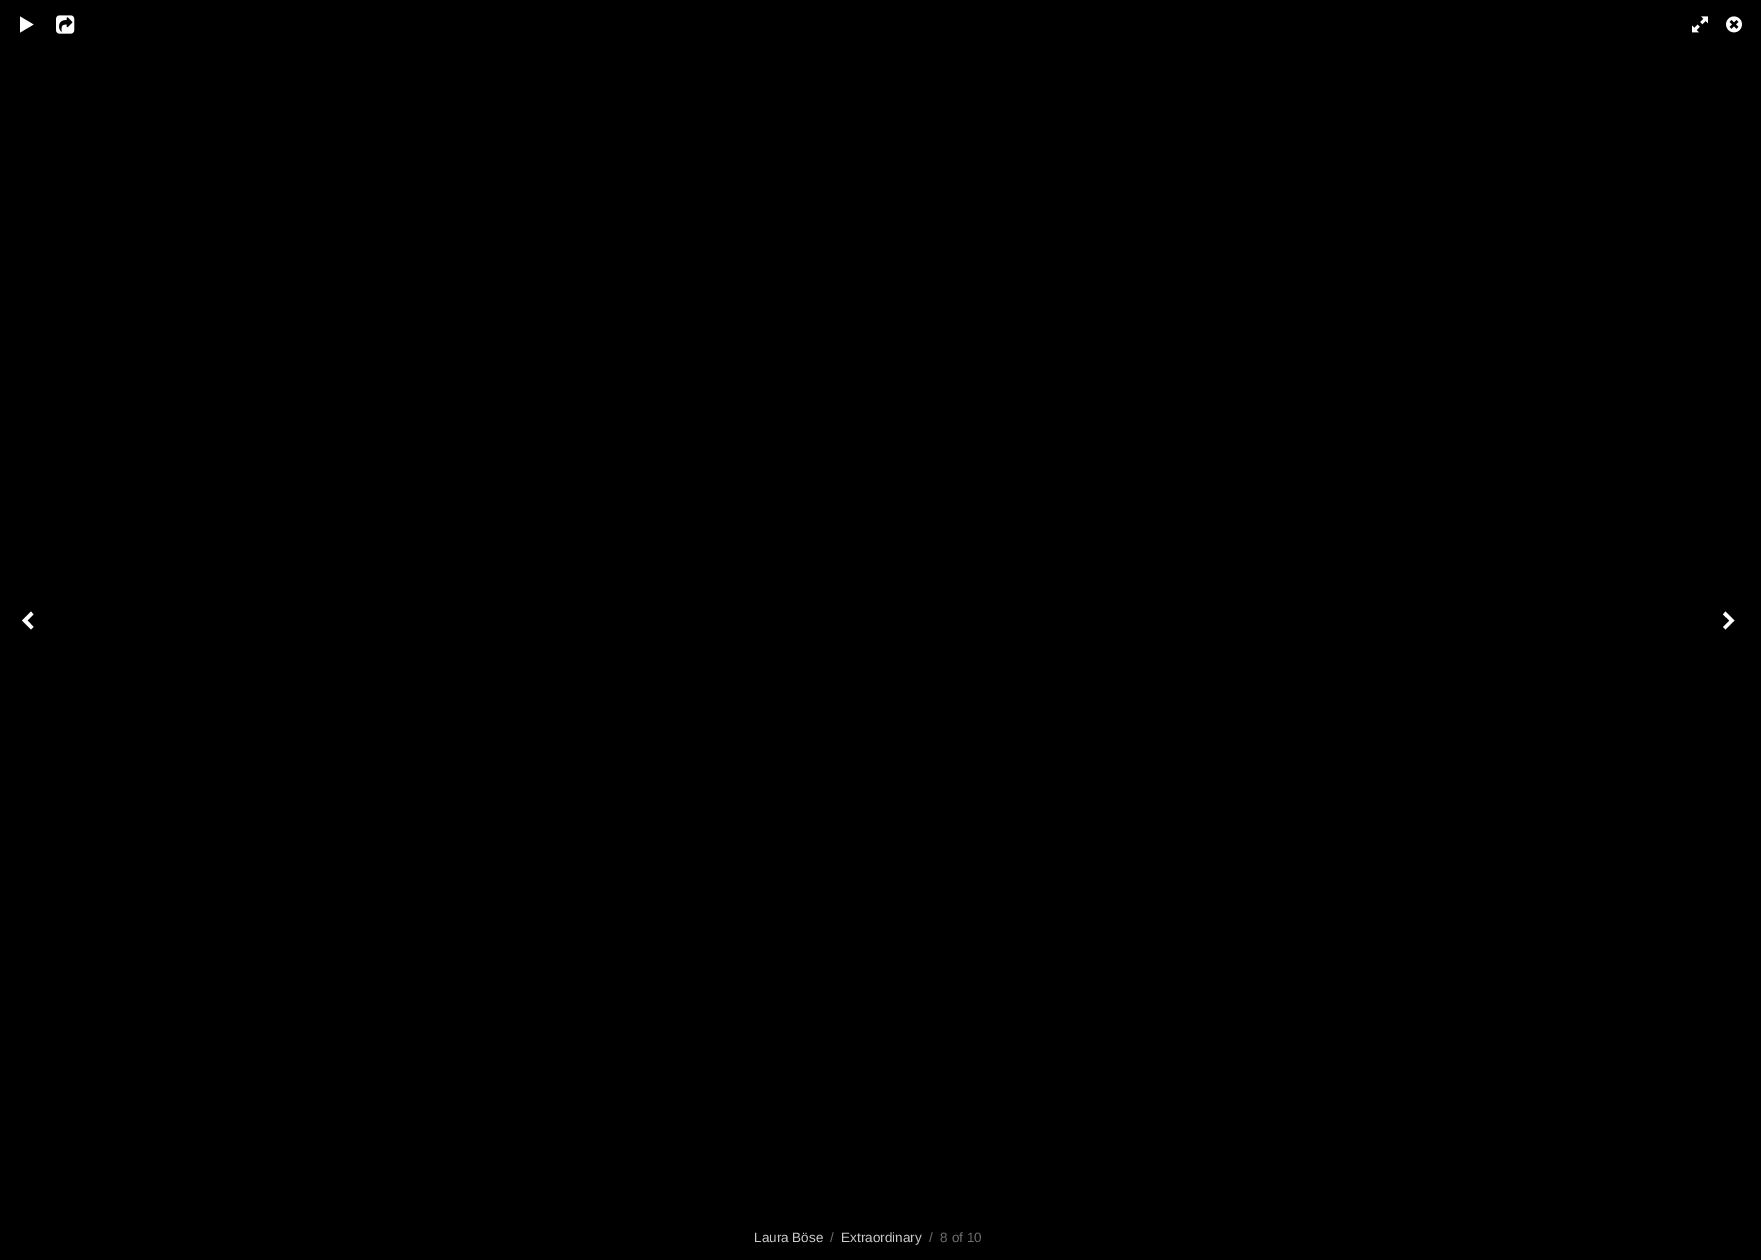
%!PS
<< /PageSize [1761 1260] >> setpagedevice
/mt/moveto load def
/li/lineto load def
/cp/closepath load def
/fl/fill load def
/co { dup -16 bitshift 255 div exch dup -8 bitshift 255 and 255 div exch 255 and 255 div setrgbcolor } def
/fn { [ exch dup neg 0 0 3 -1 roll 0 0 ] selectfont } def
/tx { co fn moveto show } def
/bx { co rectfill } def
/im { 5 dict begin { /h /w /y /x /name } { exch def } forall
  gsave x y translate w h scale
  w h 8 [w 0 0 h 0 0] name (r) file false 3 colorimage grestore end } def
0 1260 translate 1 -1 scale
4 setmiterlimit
0 0 1761 1260 16#000000 bx
16#FFFFFF co
20 32.5 mt 20 16.5 li 33.5 24.5 li cp fl
(media/1.raw) 56 15 19 19 im
(media/2.raw) 1692 16 16 17 im
(media/3.raw) 1726 16 16 17 im
22 620.5 mt 31 611.5 li 33.5 614.5 li 27.5 620.5 li 33.5 627 li 31 629.5 li cp fl
1723 627 mt 1729.5 620.5 li 1723 614.5 li 1725.5 611.5 li 1734.5 620.5 li 1725.5 629.5 li cp fl
(Laura Böse) 754 1242 /LiberationSans-Regular 13.5 16#CCCCCC tx
(/) 830 1242 /LiberationSans-Regular 13.5 16#707070 tx
(Extraordinary) 841 1242 /LiberationSans-Regular 13.5 16#CCCCCC tx
(/  8 of 10) 929 1242 /LiberationSans-Regular 13.5 16#707070 tx
showpage
